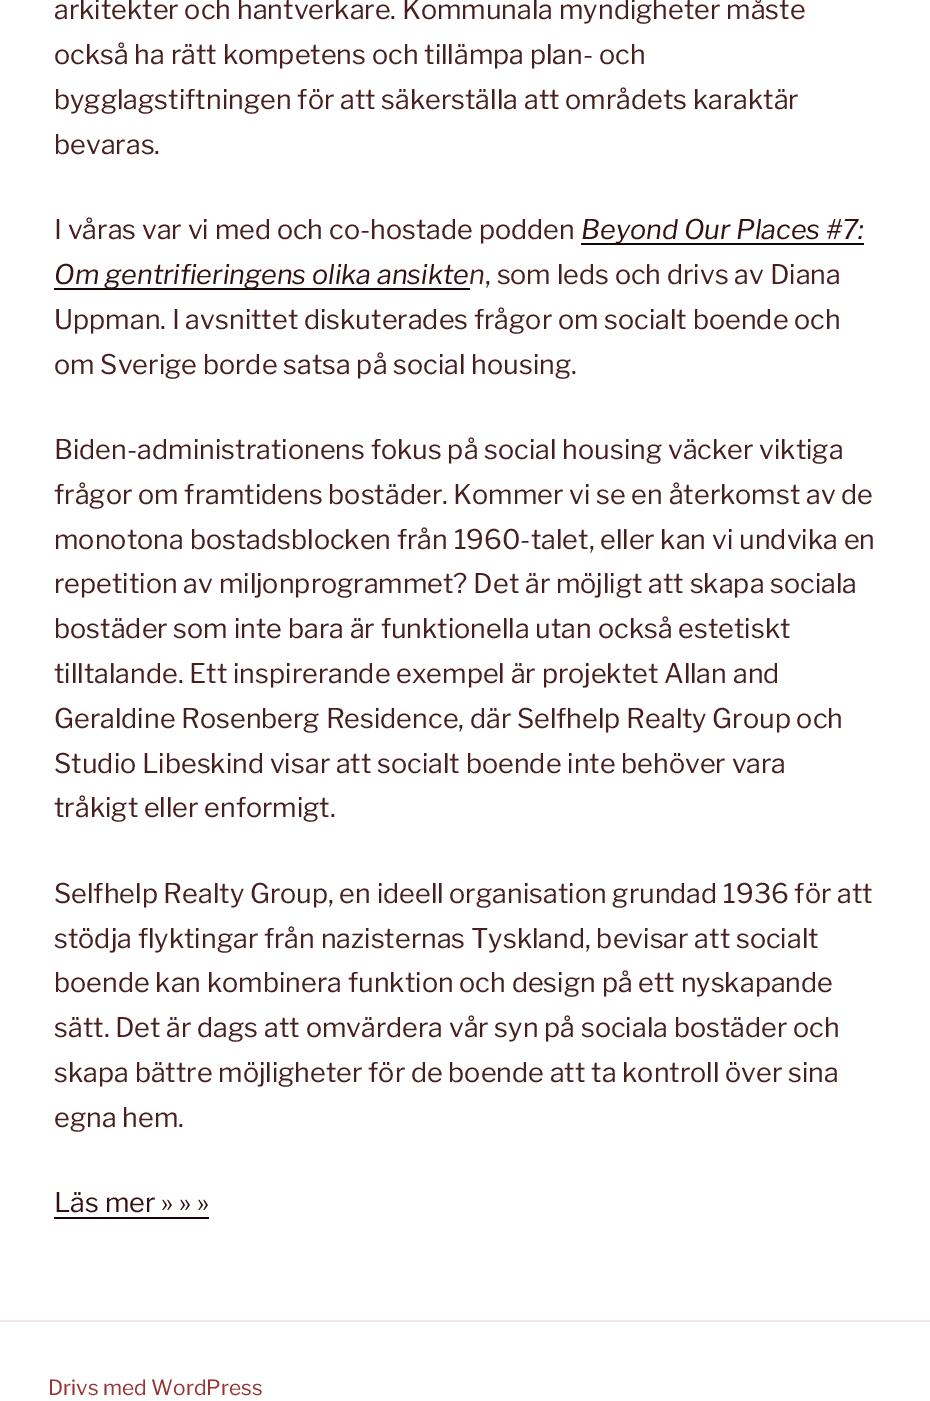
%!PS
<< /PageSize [930 1401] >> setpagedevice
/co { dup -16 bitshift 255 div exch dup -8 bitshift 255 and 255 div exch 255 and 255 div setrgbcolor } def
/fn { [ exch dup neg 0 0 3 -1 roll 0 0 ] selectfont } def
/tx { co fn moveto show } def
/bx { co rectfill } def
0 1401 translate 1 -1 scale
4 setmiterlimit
0 0 930 1401 16#FFFFFF bx
581 243 283 2 16#170808 bx
54 288 416 2 16#170808 bx
54 1217 155 2 16#170808 bx
0 1320 930 2 16#F6E4E4 bx
(arkitekter och hantverkare. Kommunala myndigheter måste) 54 19 /LibreFranklin-Thin 27 16#471F1F tx
(också ha rätt kompetens och tillämpa plan- och) 54 64 /LibreFranklin-Thin 27 16#471F1F tx
(bygglagstiftningen för att säkerställa att områdets karaktär) 54 109 /LibreFranklin-Thin 27 16#471F1F tx
(bevaras.) 54 154 /LibreFranklin-Thin 27 16#471F1F tx
(I våras var vi med och co-hostade podden) 54 239 /LibreFranklin-Thin 27 16#471F1F tx
(Beyond Our Places #7:) 581 239 /LibreFranklin-ThinItalic 27 16#321111 tx
(Om gentrifieringens olika ansikte) 54 284 /LibreFranklin-ThinItalic 27 16#321111 tx
(n) 469 284 /LibreFranklin-ThinItalic 27 16#471F1F tx
(, som leds och drivs av Diana) 485 284 /LibreFranklin-Thin 27 16#471F1F tx
(Uppman. I avsnittet diskuterades frågor om socialt boende och) 54 329 /LibreFranklin-Thin 27 16#471F1F tx
(om Sverige borde satsa på social housing.) 54 374 /LibreFranklin-Thin 27 16#471F1F tx
(Biden-administrationens fokus på social housing väcker viktiga) 54 459 /LibreFranklin-Thin 27 16#471F1F tx
(frågor om framtidens bostäder. Kommer vi se en återkomst av de) 54 504 /LibreFranklin-Thin 27 16#471F1F tx
(monotona bostadsblocken från 1960-talet, eller kan vi undvika en) 54 549 /LibreFranklin-Thin 27 16#471F1F tx
(repetition av miljonprogrammet? Det är möjligt att skapa sociala) 54 593 /LibreFranklin-Thin 27 16#471F1F tx
(bostäder som inte bara är funktionella utan också estetiskt) 54 638 /LibreFranklin-Thin 27 16#471F1F tx
(tilltalande. Ett inspirerande exempel är projektet Allan and) 54 683 /LibreFranklin-Thin 27 16#471F1F tx
(Geraldine Rosenberg Residence, där Selfhelp Realty Group och) 54 728 /LibreFranklin-Thin 27 16#471F1F tx
(Studio Libeskind visar att socialt boende inte behöver vara) 54 773 /LibreFranklin-Thin 27 16#471F1F tx
(tråkigt eller enformigt.) 54 817 /LibreFranklin-Thin 27 16#471F1F tx
(Selfhelp Realty Group, en ideell organisation grundad 1936 för att) 54 903 /LibreFranklin-Thin 27 16#471F1F tx
(stödja flyktingar från nazisternas Tyskland, bevisar att socialt) 54 948 /LibreFranklin-Thin 27 16#471F1F tx
(boende kan kombinera funktion och design på ett nyskapande) 54 992 /LibreFranklin-Thin 27 16#471F1F tx
(sätt. Det är dags att omvärdera vår syn på sociala bostäder och) 54 1037 /LibreFranklin-Thin 27 16#471F1F tx
(skapa bättre möjligheter för de boende att ta kontroll över sina) 54 1082 /LibreFranklin-Thin 27 16#471F1F tx
(egna hem.) 54 1127 /LibreFranklin-Thin 27 16#471F1F tx
(Läs mer » » ») 54 1212 /LibreFranklin-Thin 27 16#321111 tx
(Drivs med WordPress) 48 1395 /LibreFranklin-Thin 21 16#993333 tx
showpage
